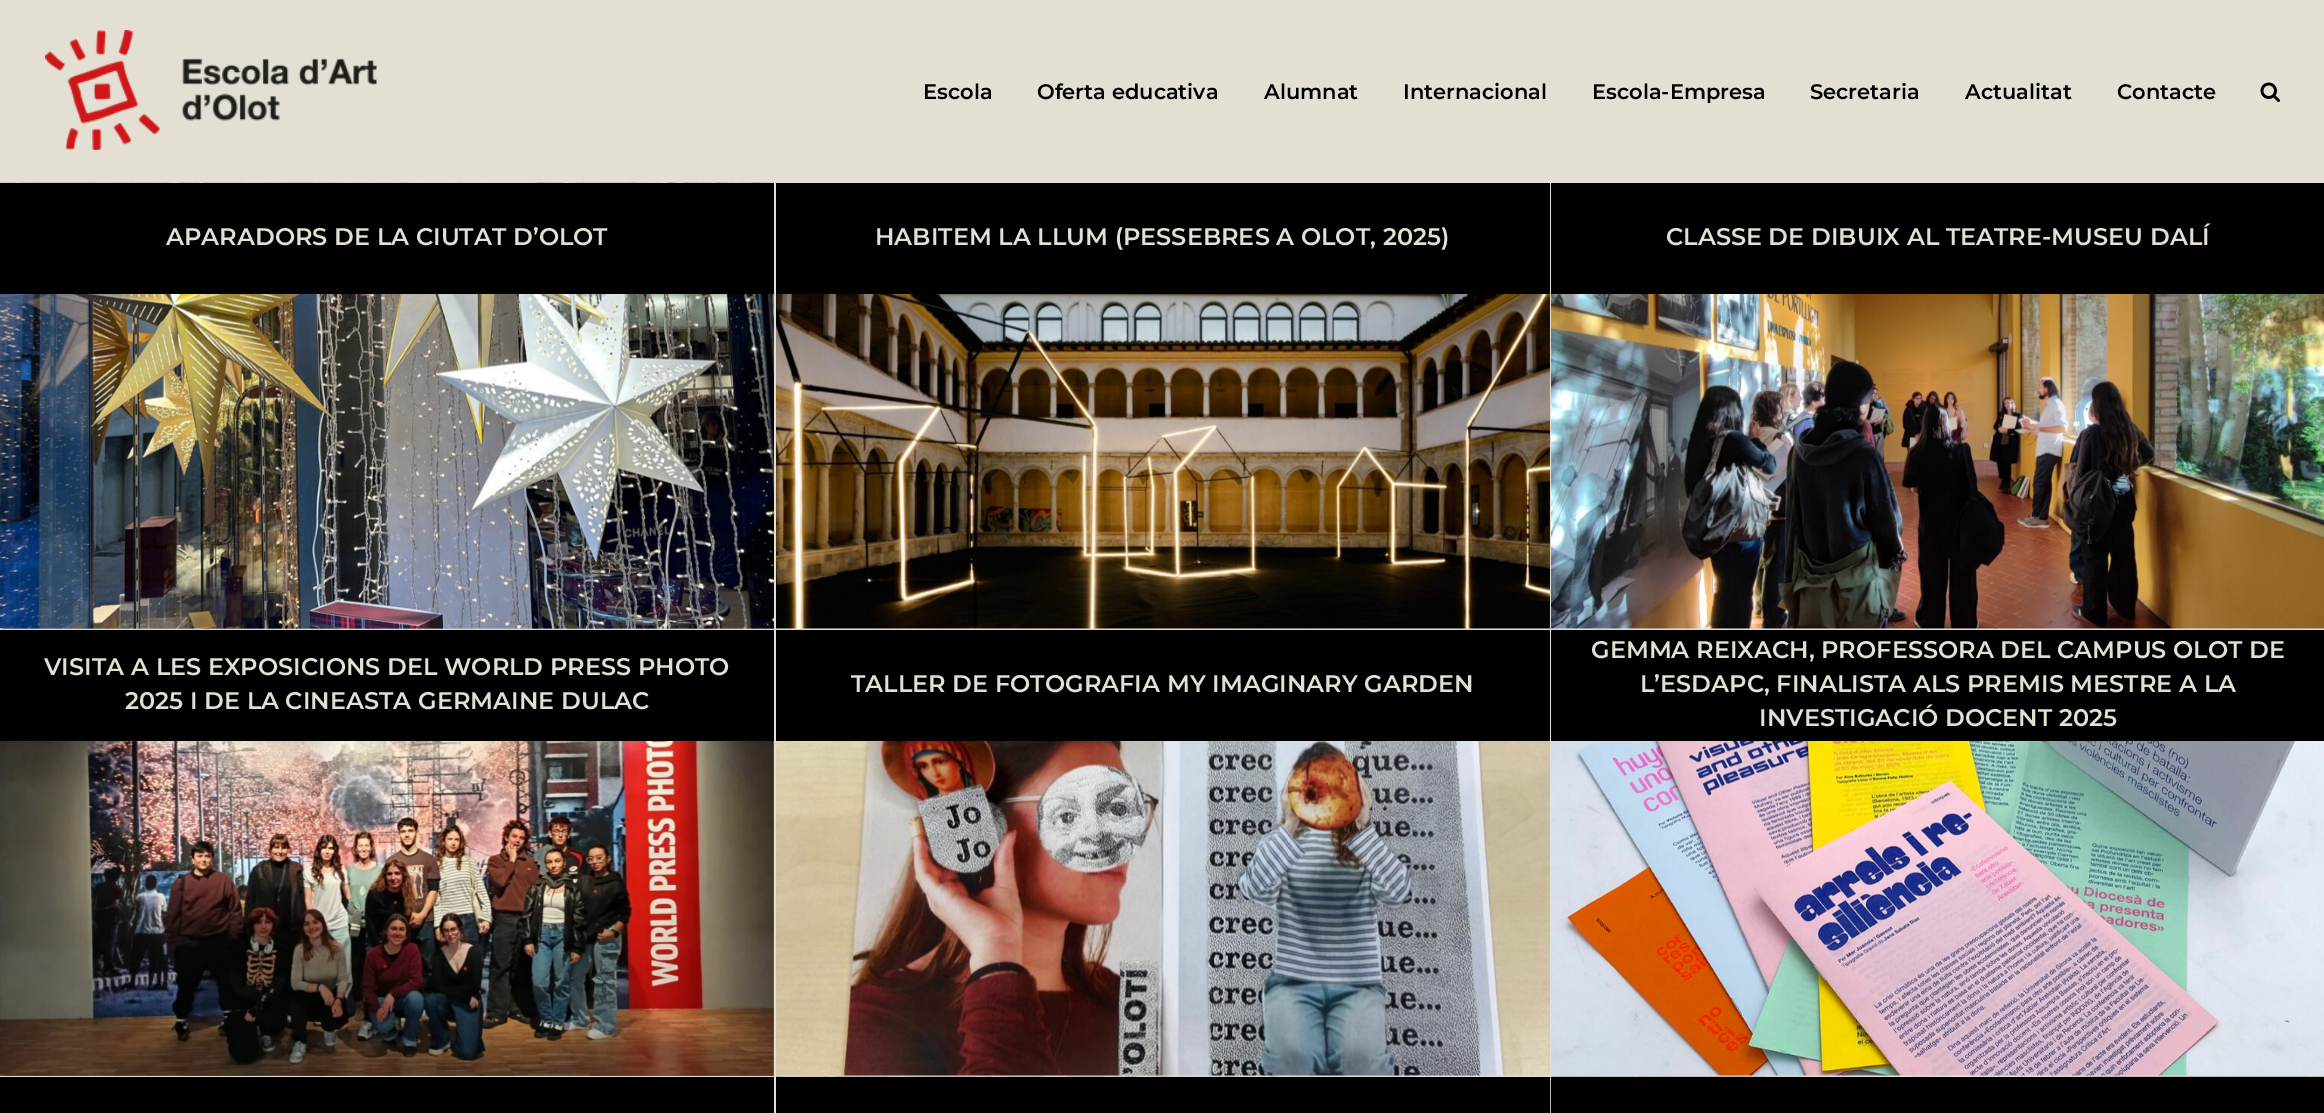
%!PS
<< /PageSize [2324 1113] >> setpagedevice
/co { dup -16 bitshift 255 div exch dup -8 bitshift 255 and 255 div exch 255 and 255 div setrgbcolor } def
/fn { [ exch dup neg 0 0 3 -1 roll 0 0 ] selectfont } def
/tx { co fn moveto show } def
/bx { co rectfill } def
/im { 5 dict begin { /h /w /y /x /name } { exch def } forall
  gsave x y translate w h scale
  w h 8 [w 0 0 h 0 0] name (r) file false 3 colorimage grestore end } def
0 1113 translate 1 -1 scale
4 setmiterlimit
0 0 2324 1113 16#E3DFD2 bx
(media/1.raw) 45 30 332 120 im
(media/2.raw) 2260 82 20 20 im
(media/3.raw) 0 182 774 447 im
0 183 774 111 16#000000 bx
(media/4.raw) 776 294 774 335 im
776 183 774 111 16#000000 bx
(media/5.raw) 1551 294 773 335 im
1551 183 773 111 16#000000 bx
(media/6.raw) 0 629 774 447 im
0 630 774 111 16#000000 bx
(media/7.raw) 776 629 774 447 im
776 630 774 111 16#000000 bx
(media/8.raw) 1551 741 773 335 im
1551 630 773 111 16#000000 bx
0 1077 774 36 16#000000 bx
(media/9.raw) 776 1076 774 1 im
776 1077 774 36 16#000000 bx
(media/10.raw) 1550 1076 774 37 im
1551 1077 773 36 16#000000 bx
(Escola) 923 99 /Montserrat-SemiBold 21 16#000000 tx
(Oferta educativa) 1037 99 /Montserrat-SemiBold 21 16#000000 tx
(Alumnat) 1264 99 /Montserrat-SemiBold 21 16#000000 tx
(Internacional) 1403 99 /Montserrat-SemiBold 21 16#000000 tx
(Escola-Empresa) 1592 99 /Montserrat-SemiBold 21 16#000000 tx
(Secretaria) 1810 99 /Montserrat-SemiBold 21 16#000000 tx
(Actualitat) 1965 99 /Montserrat-SemiBold 21 16#000000 tx
(Contacte) 2117 99 /Montserrat-SemiBold 21 16#000000 tx
(APARADORS DE LA CIUTAT D’OLOT) 166 245 /Montserrat-SemiBold 24 16#E3DFD2 tx
(HABITEM LA LLUM \(PESSEBRES A OLOT, 2025\)) 875 245 /Montserrat-SemiBold 24 16#E3DFD2 tx
(CLASSE DE DIBUIX AL TEATRE-MUSEU DALÍ) 1666 245 /Montserrat-SemiBold 24 16#E3DFD2 tx
(VISITA A LES EXPOSICIONS DEL WORLD PRESS PHOTO) 44 675 /Montserrat-SemiBold 24 16#E3DFD2 tx
(2025 I DE LA CINEASTA GERMAINE DULAC) 125 709 /Montserrat-SemiBold 24 16#E3DFD2 tx
(TALLER DE FOTOGRAFIA MY IMAGINARY GARDEN) 851 692 /Montserrat-SemiBold 24 16#E3DFD2 tx
(GEMMA REIXACH, PROFESSORA DEL CAMPUS OLOT DE) 1591 658 /Montserrat-SemiBold 24 16#E3DFD2 tx
(L’ESDAPC, FINALISTA ALS PREMIS MESTRE A LA) 1640 692 /Montserrat-SemiBold 24 16#E3DFD2 tx
(INVESTIGACIÓ DOCENT 2025) 1759 726 /Montserrat-SemiBold 24 16#E3DFD2 tx
showpage
